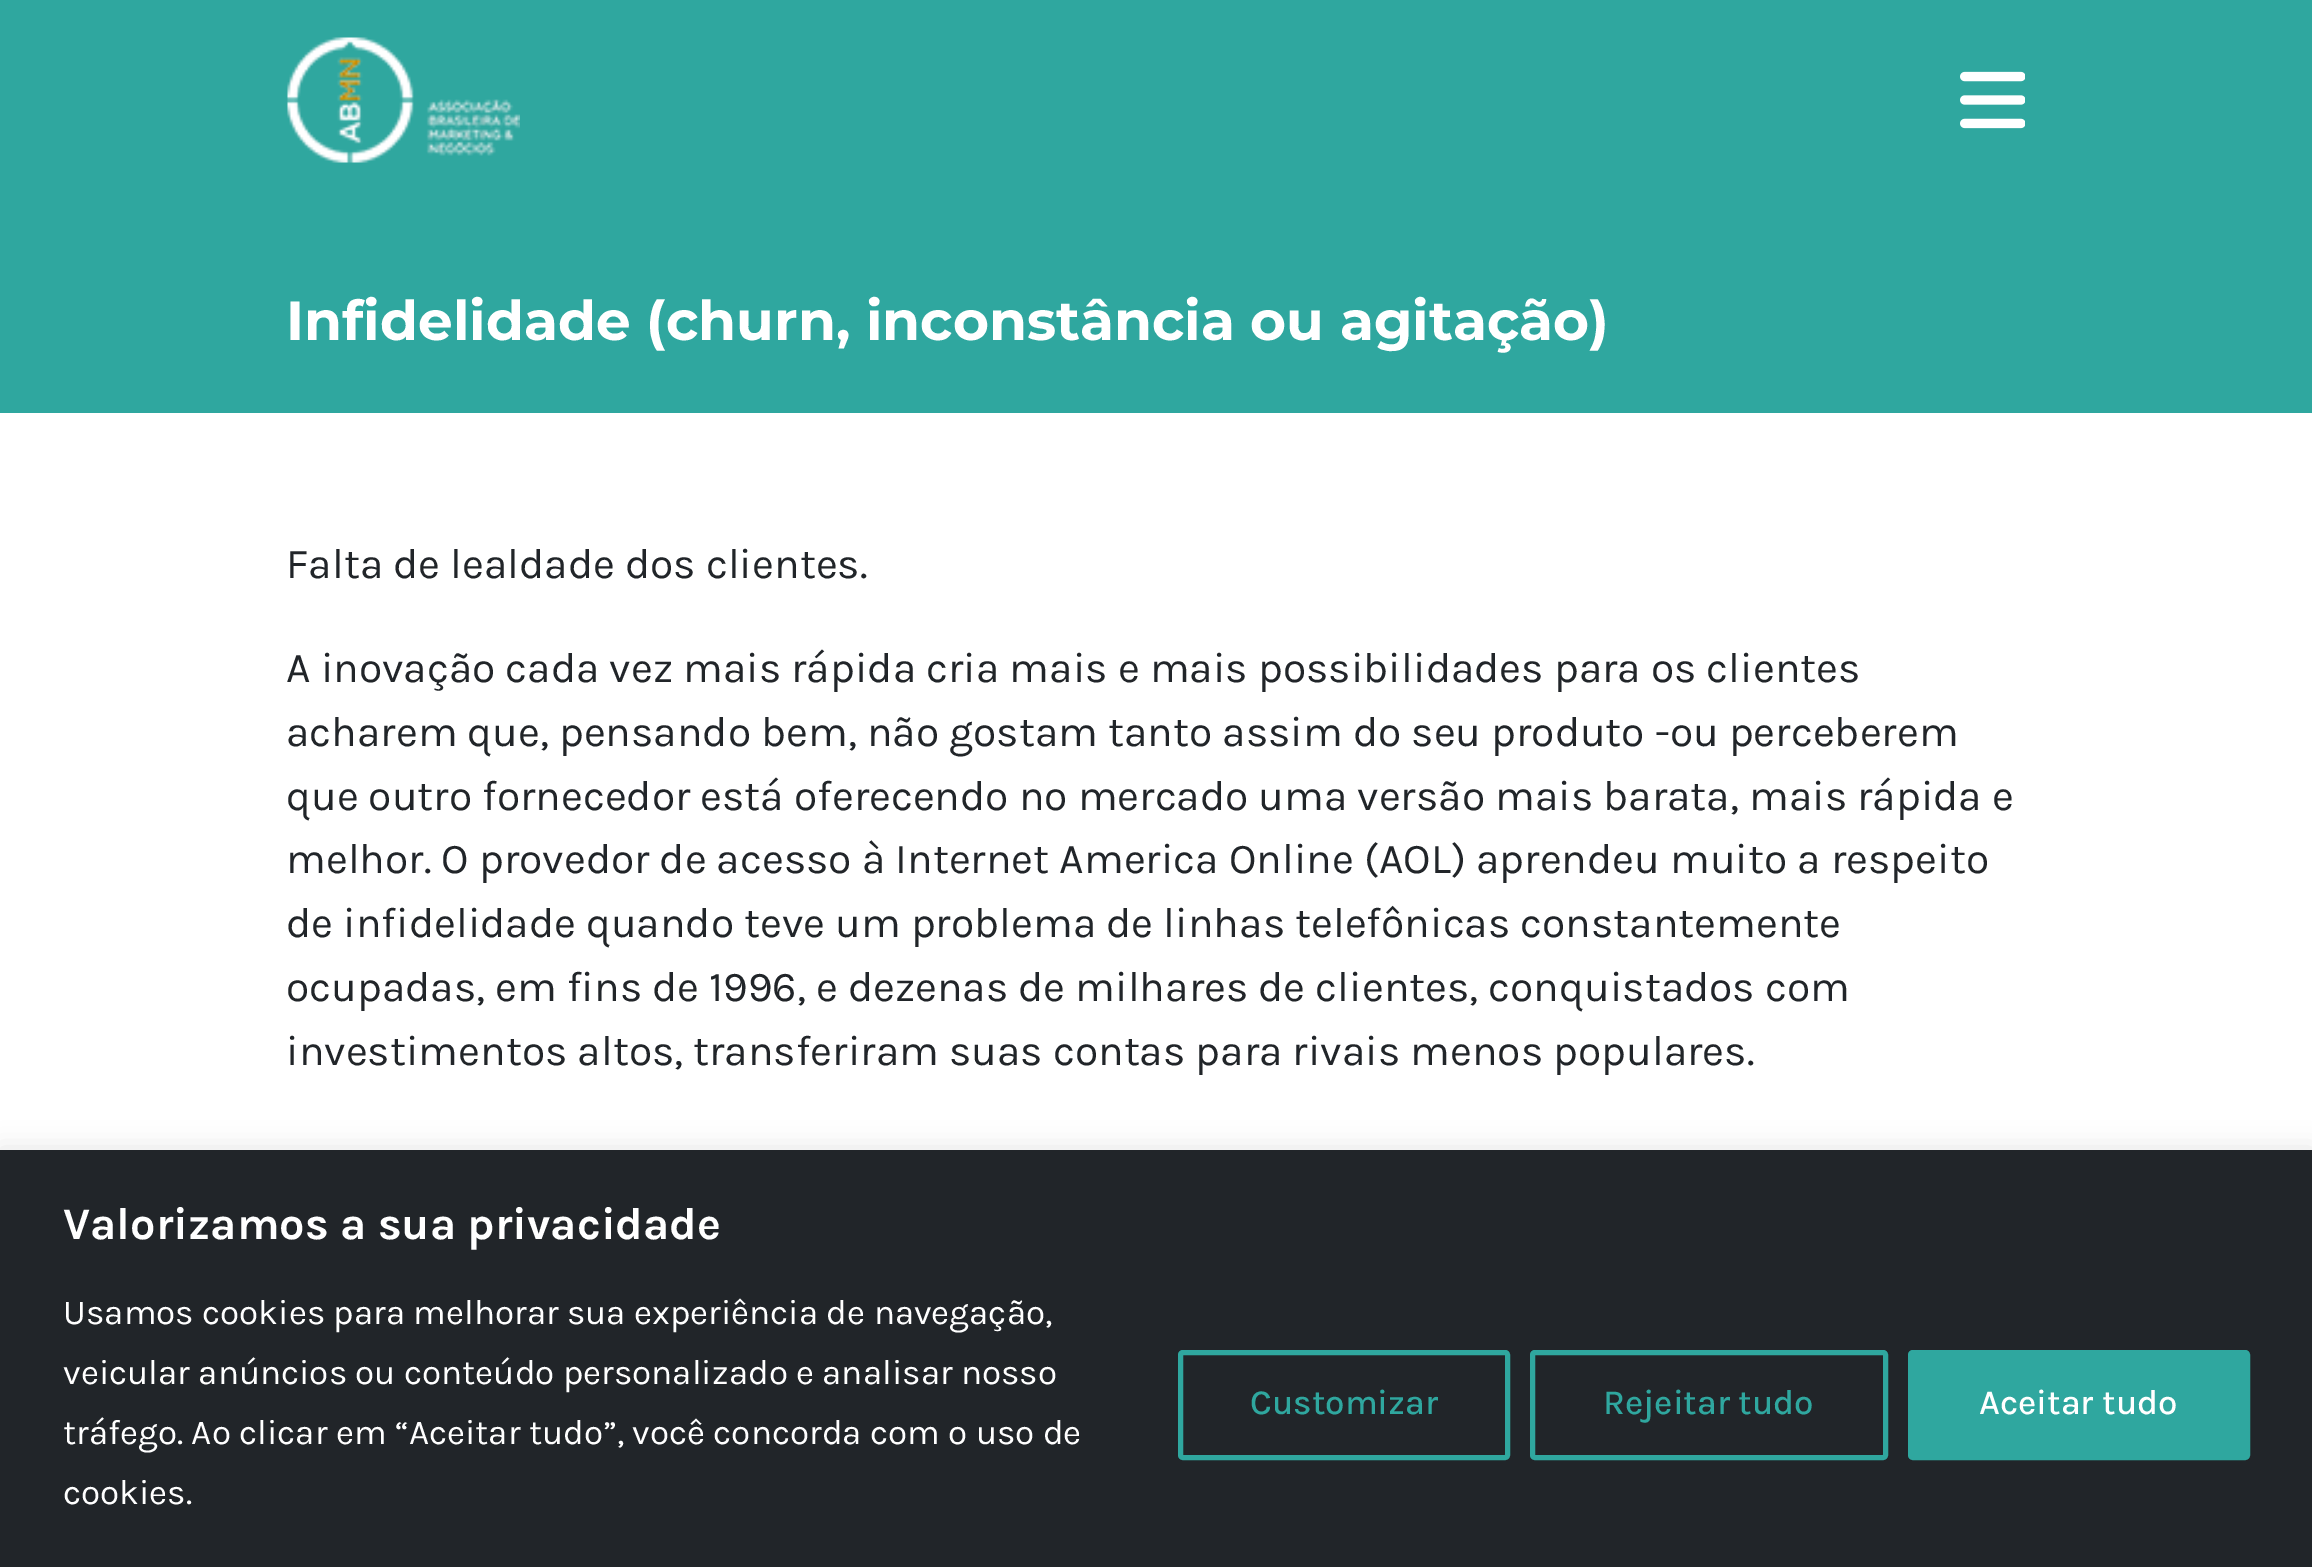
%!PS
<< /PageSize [2312 1567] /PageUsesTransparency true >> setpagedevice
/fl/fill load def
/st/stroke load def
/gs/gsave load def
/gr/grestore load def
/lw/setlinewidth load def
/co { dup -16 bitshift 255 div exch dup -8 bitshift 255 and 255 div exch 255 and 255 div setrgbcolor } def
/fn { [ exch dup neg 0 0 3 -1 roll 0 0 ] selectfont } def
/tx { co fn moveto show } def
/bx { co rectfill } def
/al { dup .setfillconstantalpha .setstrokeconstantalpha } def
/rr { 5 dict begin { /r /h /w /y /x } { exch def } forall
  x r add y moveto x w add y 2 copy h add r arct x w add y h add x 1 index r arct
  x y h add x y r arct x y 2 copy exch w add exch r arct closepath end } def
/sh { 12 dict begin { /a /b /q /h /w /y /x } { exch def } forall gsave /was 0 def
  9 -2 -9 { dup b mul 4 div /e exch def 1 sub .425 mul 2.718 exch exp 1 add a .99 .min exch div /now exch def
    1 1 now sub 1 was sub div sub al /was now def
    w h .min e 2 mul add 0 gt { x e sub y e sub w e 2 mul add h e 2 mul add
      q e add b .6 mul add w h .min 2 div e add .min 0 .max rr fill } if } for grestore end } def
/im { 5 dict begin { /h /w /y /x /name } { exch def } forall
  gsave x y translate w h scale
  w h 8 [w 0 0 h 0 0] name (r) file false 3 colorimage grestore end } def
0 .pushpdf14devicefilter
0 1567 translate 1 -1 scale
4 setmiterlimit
0 0 2312 1567 16#FFFFFF bx
0 0 2312 413 16#2FA79F bx
(media/1.raw) 287 37 233 126 im
(media/2.raw) 1960 71 65 58 im
16#ACABAB co
0 1148 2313 417 0 12.5 .3 sh
0 1150 2312 417 16#212529 bx
16#2FA79F co
5 lw
1180.5 1352.5 327 105 2.5 rr st
1532.5 1352.5 353 105 2.5 rr st
1910.5 1352.5 337 105 2.5 rr gs fl gr
st
(Infidelidade \(churn, inconstância ou agitação\)) 286 340 /Montserrat-Bold 55 16#FFFFFF tx
(Falta de lealdade dos clientes.) 286 578 /Karla-Regular 42.5 16#212529 tx
(A inovação cada vez mais rápida cria mais e mais possibilidades para os clientes) 286 682 /Karla-Regular 42.5 16#212529 tx
(acharem que, pensando bem, não gostam tanto assim do seu produto -ou perceberem) 286 746 /Karla-Regular 42.5 16#212529 tx
(que outro fornecedor está oferecendo no mercado uma versão mais barata, mais rápida e) 286 810 /Karla-Regular 42.5 16#212529 tx
(melhor. O provedor de acesso à Internet America Online \(AOL\) aprendeu muito a respeito) 286 873 /Karla-Regular 42.5 16#212529 tx
(de infidelidade quando teve um problema de linhas telefônicas constantemente) 286 937 /Karla-Regular 42.5 16#212529 tx
(ocupadas, em fins de 1996, e dezenas de milhares de clientes, conquistados com) 286 1001 /Karla-Regular 42.5 16#212529 tx
(investimentos altos, transferiram suas contas para rivais menos populares.) 286 1065 /Karla-Regular 42.5 16#212529 tx
(Valorizamos a sua privacidade) 63 1239 /Karla-Bold 45 16#FFFFFF tx
(Usamos cookies para melhorar sua experiência de navegação,) 63 1324 /Karla-Regular 35 16#FFFFFF tx
(veicular anúncios ou conteúdo personalizado e analisar nosso) 63 1384 /Karla-Regular 35 16#FFFFFF tx
(tráfego. Ao clicar em “Aceitar tudo”, você concorda com o uso de) 63 1444 /Karla-Regular 35 16#FFFFFF tx
(cookies.) 63 1504 /Karla-Regular 35 16#FFFFFF tx
(Customizar) 1250 1414 /Karla-Medium 35 16#2FA79F tx
(Rejeitar tudo) 1603 1414 /Karla-Medium 35 16#2FA79F tx
(Aceitar tudo) 1979 1414 /Karla-Medium 35 16#FFFFFF tx
.poppdf14devicefilter showpage
